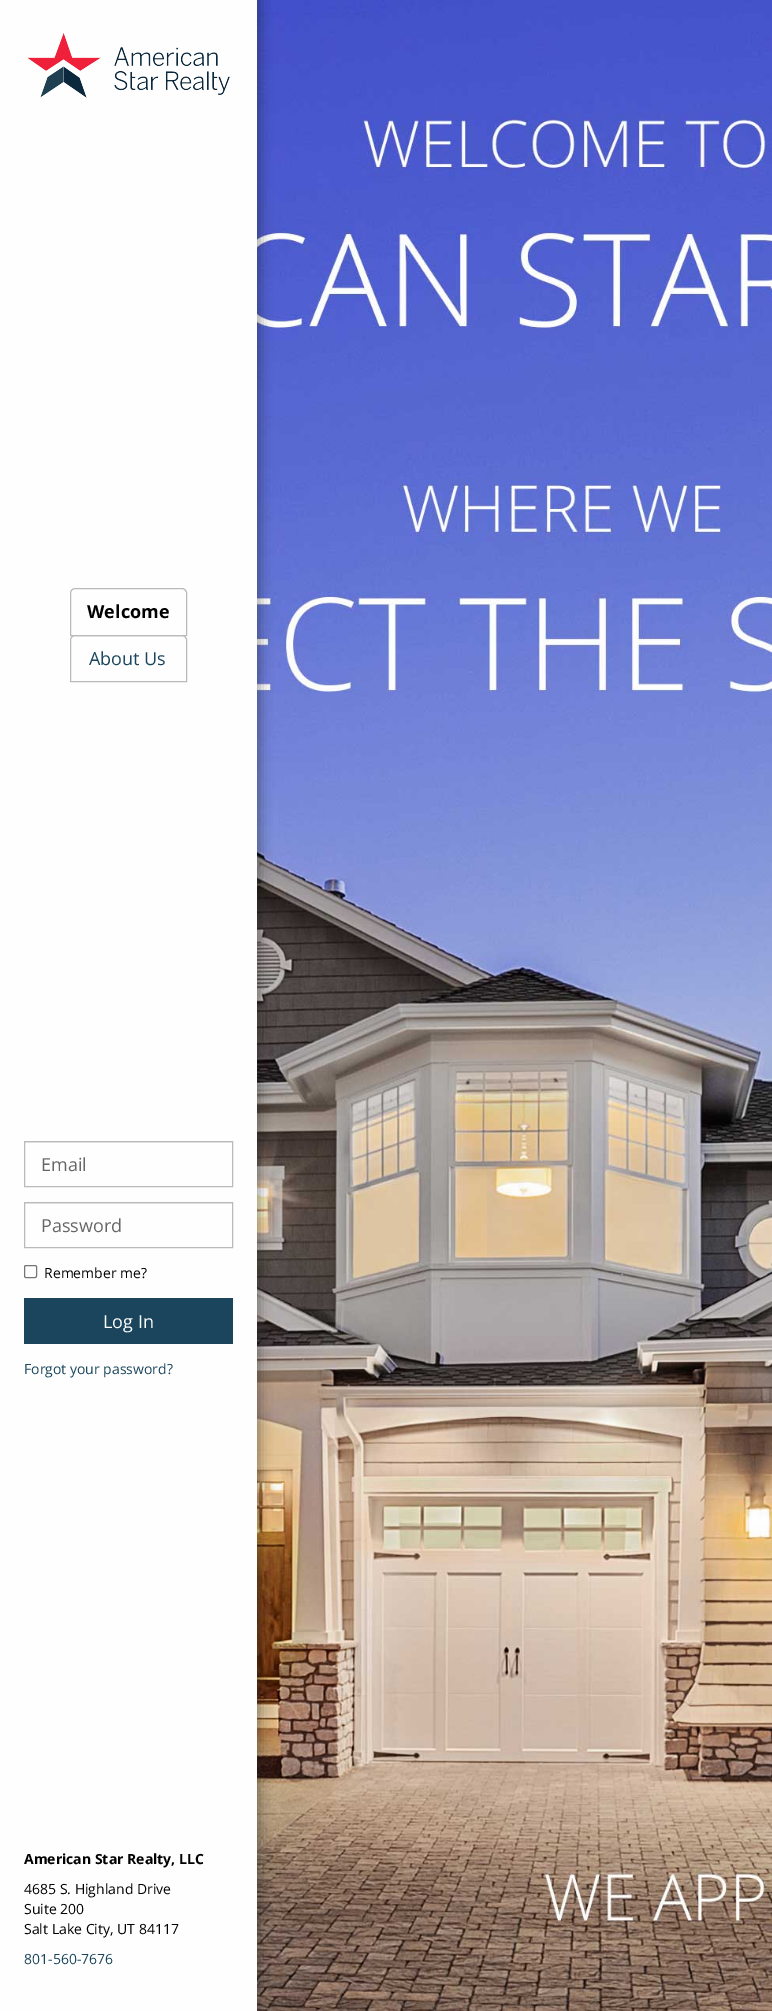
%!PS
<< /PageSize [772 2011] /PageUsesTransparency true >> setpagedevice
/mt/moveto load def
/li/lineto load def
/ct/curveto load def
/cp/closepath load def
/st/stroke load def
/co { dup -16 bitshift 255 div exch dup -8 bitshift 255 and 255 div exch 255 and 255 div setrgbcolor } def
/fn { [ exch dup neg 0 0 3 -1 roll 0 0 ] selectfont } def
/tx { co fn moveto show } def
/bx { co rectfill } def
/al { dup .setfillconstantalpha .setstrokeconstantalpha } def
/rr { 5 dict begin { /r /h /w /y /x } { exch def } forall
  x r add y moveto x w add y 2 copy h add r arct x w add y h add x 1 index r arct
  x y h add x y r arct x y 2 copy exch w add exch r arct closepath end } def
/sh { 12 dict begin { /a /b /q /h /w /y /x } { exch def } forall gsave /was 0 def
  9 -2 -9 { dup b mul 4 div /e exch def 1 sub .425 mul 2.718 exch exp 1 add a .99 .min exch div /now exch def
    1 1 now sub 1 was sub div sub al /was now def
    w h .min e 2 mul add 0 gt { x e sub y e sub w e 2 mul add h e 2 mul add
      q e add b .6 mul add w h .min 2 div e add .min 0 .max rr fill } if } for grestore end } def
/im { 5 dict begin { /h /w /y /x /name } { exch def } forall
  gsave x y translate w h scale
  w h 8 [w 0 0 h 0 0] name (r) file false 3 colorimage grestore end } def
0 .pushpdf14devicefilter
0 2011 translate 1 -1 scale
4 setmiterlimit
0 0 772 2011 16#FFFFFF bx
(media/2.raw) 257 0 515 2011 im
16#161616 co
-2 -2 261 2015 0 6.5 .45 sh
0 0 257 2011 16#FEFEFE bx
(media/1.raw) 27 33 203 65 im
16#BABABA co
75 588.5 mt 182 588.5 li 184.5 588.5 186.5 590.5 186.5 593 ct 186.5 635.5 li 70.5 635.5 li 70.5 593 li 70.5 590.5 72.5 588.5 75 588.5 ct cp st
75 635.5 mt 182 635.5 li 184.5 635.5 186.5 637.5 186.5 640 ct 186.5 681.5 li 70.5 681.5 li 70.5 640 li 70.5 637.5 72.5 635.5 75 635.5 ct cp st
25 1142 207 1 16#EBEBEB bx
16#BABABA co
24.5 1141.5 208 45 rectstroke
25 1203 207 1 16#EBEBEB bx
16#BABABA co
24.5 1202.5 208 45 rectstroke
16#767676 co
24.5 1265.5 12 12 1.5 rr st
24 1298 209 46 16#1A455C bx
(Welcome) 87 618 /OpenSans-Bold 18 16#000000 tx
(About Us) 89 665 /OpenSans-Regular 18 16#1A455C tx
(Email) 41 1171 /OpenSans-Regular 18 16#666666 tx
(Password) 41 1232 /OpenSans-Regular 18 16#666666 tx
(Remember me?) 44 1278 /OpenSans-Regular 14 16#000000 tx
(Log In) 103 1328 /OpenSans-Regular 18 16#FFFFFF tx
(Forgot your password?) 24 1374 /OpenSans-Regular 14 16#1A455C tx
(American Star Realty, LLC) 24 1864 /OpenSans-Bold 14 16#000000 tx
(4685 S. Highland Drive) 24 1894 /OpenSans-Regular 14 16#000000 tx
(Suite 200) 24 1914 /OpenSans-Regular 14 16#000000 tx
(Salt Lake City, UT 84117) 24 1934 /OpenSans-Regular 14 16#000000 tx
(801-560-7676) 24 1964 /OpenSans-Regular 14 16#1A455C tx
.poppdf14devicefilter showpage
